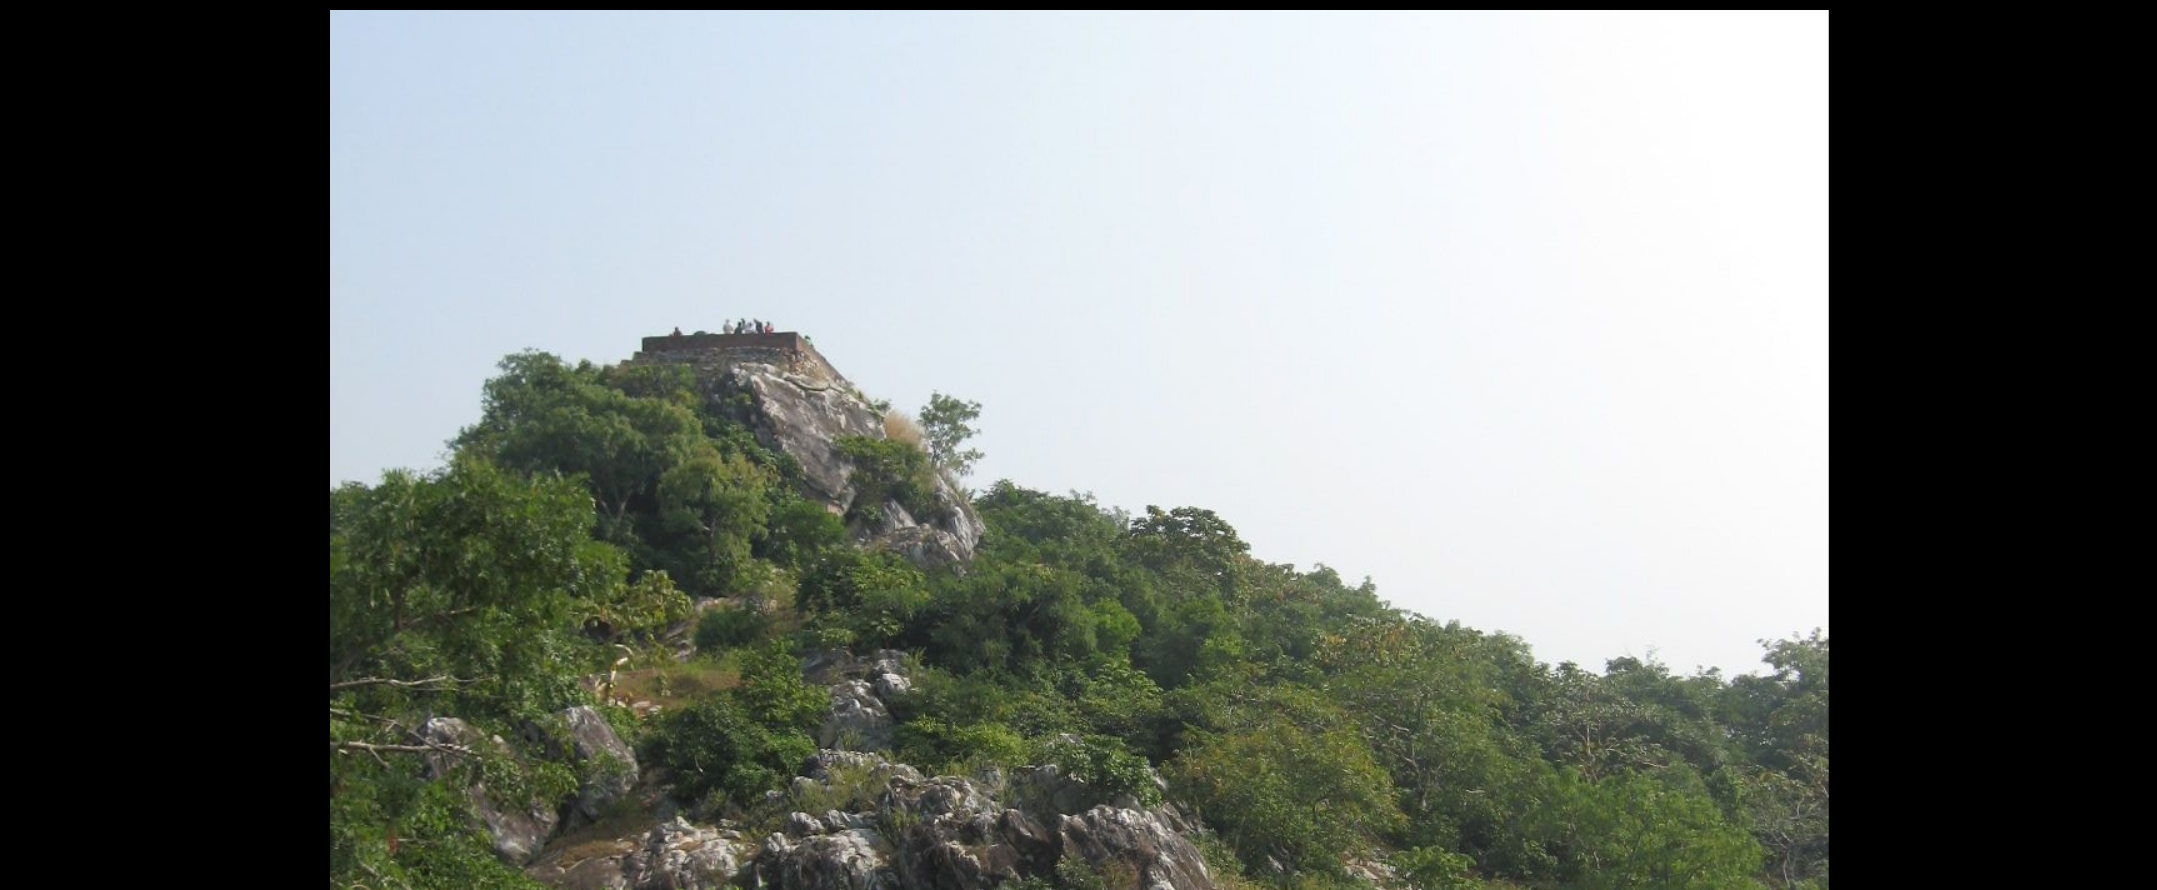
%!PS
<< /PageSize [2157 890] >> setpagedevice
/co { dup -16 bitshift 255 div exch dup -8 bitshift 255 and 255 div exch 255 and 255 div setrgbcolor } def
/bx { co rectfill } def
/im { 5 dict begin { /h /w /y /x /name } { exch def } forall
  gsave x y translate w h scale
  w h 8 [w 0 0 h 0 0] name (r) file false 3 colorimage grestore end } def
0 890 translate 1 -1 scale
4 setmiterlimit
0 0 2157 890 16#000000 bx
(media/1.raw) 330 10 1499 880 im
showpage
